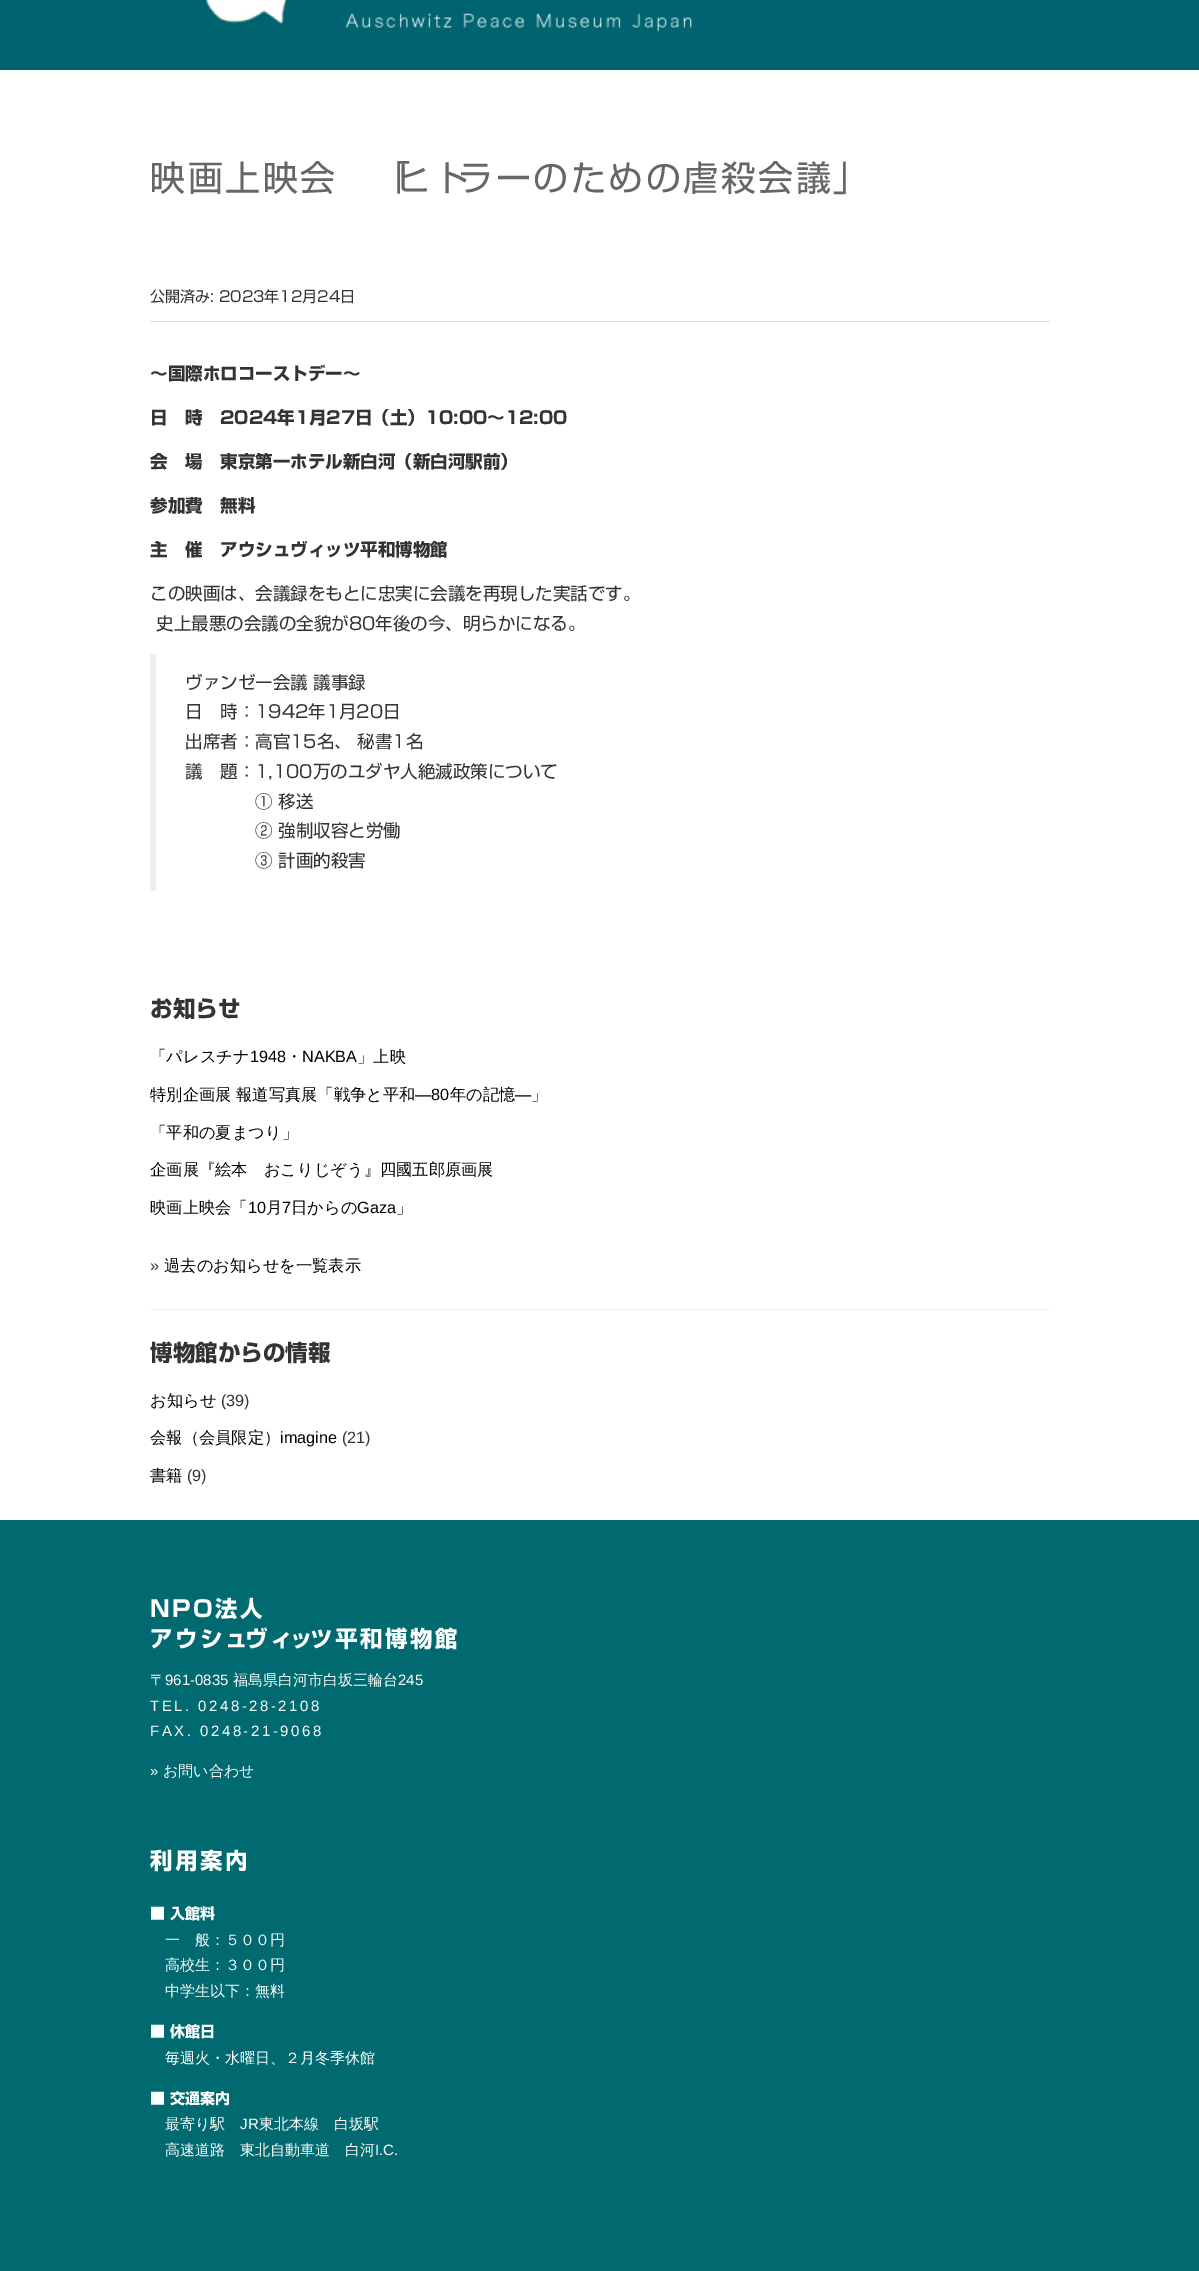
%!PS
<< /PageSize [1199 2271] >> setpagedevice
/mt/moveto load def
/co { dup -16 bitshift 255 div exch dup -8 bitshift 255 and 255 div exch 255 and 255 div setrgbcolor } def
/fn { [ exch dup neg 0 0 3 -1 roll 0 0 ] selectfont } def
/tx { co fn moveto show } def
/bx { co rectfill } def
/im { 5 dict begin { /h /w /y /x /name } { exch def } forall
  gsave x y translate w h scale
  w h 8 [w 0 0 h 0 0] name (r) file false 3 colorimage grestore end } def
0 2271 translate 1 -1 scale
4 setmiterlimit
0 0 1199 2271 16#FFFFFF bx
0 0 1199 70 16#006470 bx
(media/1.raw) 205 0 487 32 im
150 321 900 1 16#DDDDDD bx
150 654 6 237 16#EEEEEE bx
150 1309 900 1 16#EEEEEE bx
0 1520 1199 751 16#006A70 bx
/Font-Regular 35 fn
16#666666 co
150 191 mt 2.5 0 (映画上映会　「) ashow
396 191 mt 2.5 0 (ヒト) ashow
458 191 mt 2.5 0 (ラーのための虐殺会議」) ashow
(公開済み: 2023年12月24日) 150 302 /Font-Regular 15 16#333333 tx
(〜国際ホロコーストデー〜) 150 380 /Font-Bold 17.5 16#333333 tx
(日　時　2024年1月27日（土）10:00〜12:00) 150 424 /Font-Bold 17.5 16#333333 tx
(会　場　東京第一ホテル新白河（新白河駅前）) 150 468 /Font-Bold 17.5 16#333333 tx
(参加費　無料) 150 512 /Font-Bold 17.5 16#333333 tx
(主　催　アウシュヴィッツ平和博物館) 150 556 /Font-Bold 17.5 16#333333 tx
(この映画は、会議録をもとに忠実に会議を再現した実話です。) 150 600 /Font-Regular 17.5 16#333333 tx
(史上最悪の会議の全貌が80年後の今、明らかになる。) 156 630 /Font-Regular 17.5 16#333333 tx
(ヴァンゼー会議 議事録) 185 689 /Font-Regular 17.5 16#333333 tx
(日　時：1942年1月20日) 185 718 /Font-Regular 17.5 16#333333 tx
(出席者：高官15名、 秘書1名) 185 748 /Font-Regular 17.5 16#333333 tx
(議　題：1,100万のユダヤ人絶滅政策について) 185 778 /Font-Regular 17.5 16#333333 tx
(① 移送) 255 808 /Font-Regular 17.5 16#333333 tx
(② 強制収容と労働) 255 837 /Font-Regular 17.5 16#333333 tx
(③ 計画的殺害) 255 867 /Font-Regular 17.5 16#333333 tx
(お知らせ) 150 1017 /Font-Bold 22.5 16#333333 tx
(「パレスチナ) 150 1062 /WenQuanYiZenHei-Medium 16.25 16#000000 tx
(1948) 250 1062 /LiberationSans-Regular 16.25 16#000000 tx
(・) 286 1062 /WenQuanYiZenHei-Medium 16.25 16#000000 tx
(NAKBA) 302 1062 /LiberationSans-Regular 16.25 16#000000 tx
(」上映) 357 1062 /WenQuanYiZenHei-Medium 16.25 16#000000 tx
(特別企画展 報道写真展「戦争と平和) 150 1100 /WenQuanYiZenHei-Medium 16.25 16#000000 tx
(―80) 415 1100 /LiberationSans-Regular 16.25 16#000000 tx
(年の記憶) 450 1100 /WenQuanYiZenHei-Medium 16.25 16#000000 tx
(―) 515 1100 /LiberationSans-Regular 16.25 16#000000 tx
(」) 531 1100 /WenQuanYiZenHei-Medium 16.25 16#000000 tx
(「平和の夏まつり」) 150 1138 /WenQuanYiZenHei-Medium 16.25 16#000000 tx
(企画展『絵本　おこりじぞう』四國五郎原画展) 150 1175 /WenQuanYiZenHei-Medium 16.25 16#000000 tx
(映画上映会「) 150 1213 /WenQuanYiZenHei-Medium 16.25 16#000000 tx
(10) 248 1213 /LiberationSans-Regular 16.25 16#000000 tx
(月) 266 1213 /WenQuanYiZenHei-Medium 16.25 16#000000 tx
(7) 282 1213 /LiberationSans-Regular 16.25 16#000000 tx
(日からの) 291 1213 /WenQuanYiZenHei-Medium 16.25 16#000000 tx
(Gaza) 357 1213 /LiberationSans-Regular 16.25 16#000000 tx
(」) 396 1213 /WenQuanYiZenHei-Medium 16.25 16#000000 tx
(») 150 1271 /LiberationSans-Regular 16.25 16#333333 tx
(過去のお知らせを一覧表示) 164 1271 /WenQuanYiZenHei-Medium 16.25 16#000000 tx
(博物館からの情報) 150 1361 /Font-Bold 22.5 16#333333 tx
(お知らせ) 150 1406 /WenQuanYiZenHei-Medium 16.25 16#000000 tx
(\(39\)) 221 1406 /LiberationSans-Regular 16.25 16#333333 tx
(会報（会員限定）) 150 1443 /WenQuanYiZenHei-Medium 16.25 16#000000 tx
(imagine) 280 1443 /LiberationSans-Regular 16.25 16#000000 tx
(\(21\)) 342 1443 /LiberationSans-Regular 16.25 16#333333 tx
(書籍) 150 1481 /WenQuanYiZenHei-Medium 16.25 16#000000 tx
(\(9\)) 187 1481 /LiberationSans-Regular 16.25 16#333333 tx
/Font-Bold 22.5 fn
16#FFFFFF co
150 1617 mt 2.5 0 (NPO法人) ashow
150 1647 mt 2.5 0 (アウシュ) ashow
245 1647 mt 2.5 0 (ヴィ) ashow
290 1647 mt 2.5 0 (ッ) ashow
310 1647 mt 2.5 0 (ツ平和博物館) ashow
(〒) 150 1685 /WenQuanYiZenHei-Medium 15 16#FFFFFF tx
(961-0835) 165 1685 /LiberationSans-Regular 15 16#FFFFFF tx
(福島県白河市白坂三輪台) 233 1685 /WenQuanYiZenHei-Medium 15 16#FFFFFF tx
(245) 398 1685 /LiberationSans-Regular 15 16#FFFFFF tx
150 1711 mt 2.5 0 (TEL. 0248-28-2108) ashow
150 1736 mt 2.5 0 (FAX. 0248-21-9068) ashow
(») 150 1776 /LiberationSans-Regular 15 16#FFFFFF tx
(お問い合わせ) 163 1776 /WenQuanYiZenHei-Medium 15 16#FFFFFF tx
/Font-Bold 22.5 fn
150 1869 mt 2.5 0 (利用案内) ashow
(■ 入館料) 150 1919 /Font-Bold 15 16#FFFFFF tx
(一　般：５００円) 165 1945 /WenQuanYiZenHei-Medium 15 16#FFFFFF tx
(高校生：３００円) 165 1970 /WenQuanYiZenHei-Medium 15 16#FFFFFF tx
(中学生以下：無料) 165 1996 /WenQuanYiZenHei-Medium 15 16#FFFFFF tx
(■ 休館日) 150 2037 /Font-Bold 15 16#FFFFFF tx
(毎週火・水曜日、２月冬季休館) 165 2063 /WenQuanYiZenHei-Medium 15 16#FFFFFF tx
(■ 交通案内) 150 2104 /Font-Bold 15 16#FFFFFF tx
(最寄り駅) 165 2129 /WenQuanYiZenHei-Medium 15 16#FFFFFF tx
(JR) 240 2129 /LiberationSans-Regular 15 16#FFFFFF tx
(東北本線　白坂駅) 259 2129 /WenQuanYiZenHei-Medium 15 16#FFFFFF tx
(高速道路　東北自動車道　白河) 165 2155 /WenQuanYiZenHei-Medium 15 16#FFFFFF tx
(I.C.) 375 2155 /LiberationSans-Regular 15 16#FFFFFF tx
showpage
